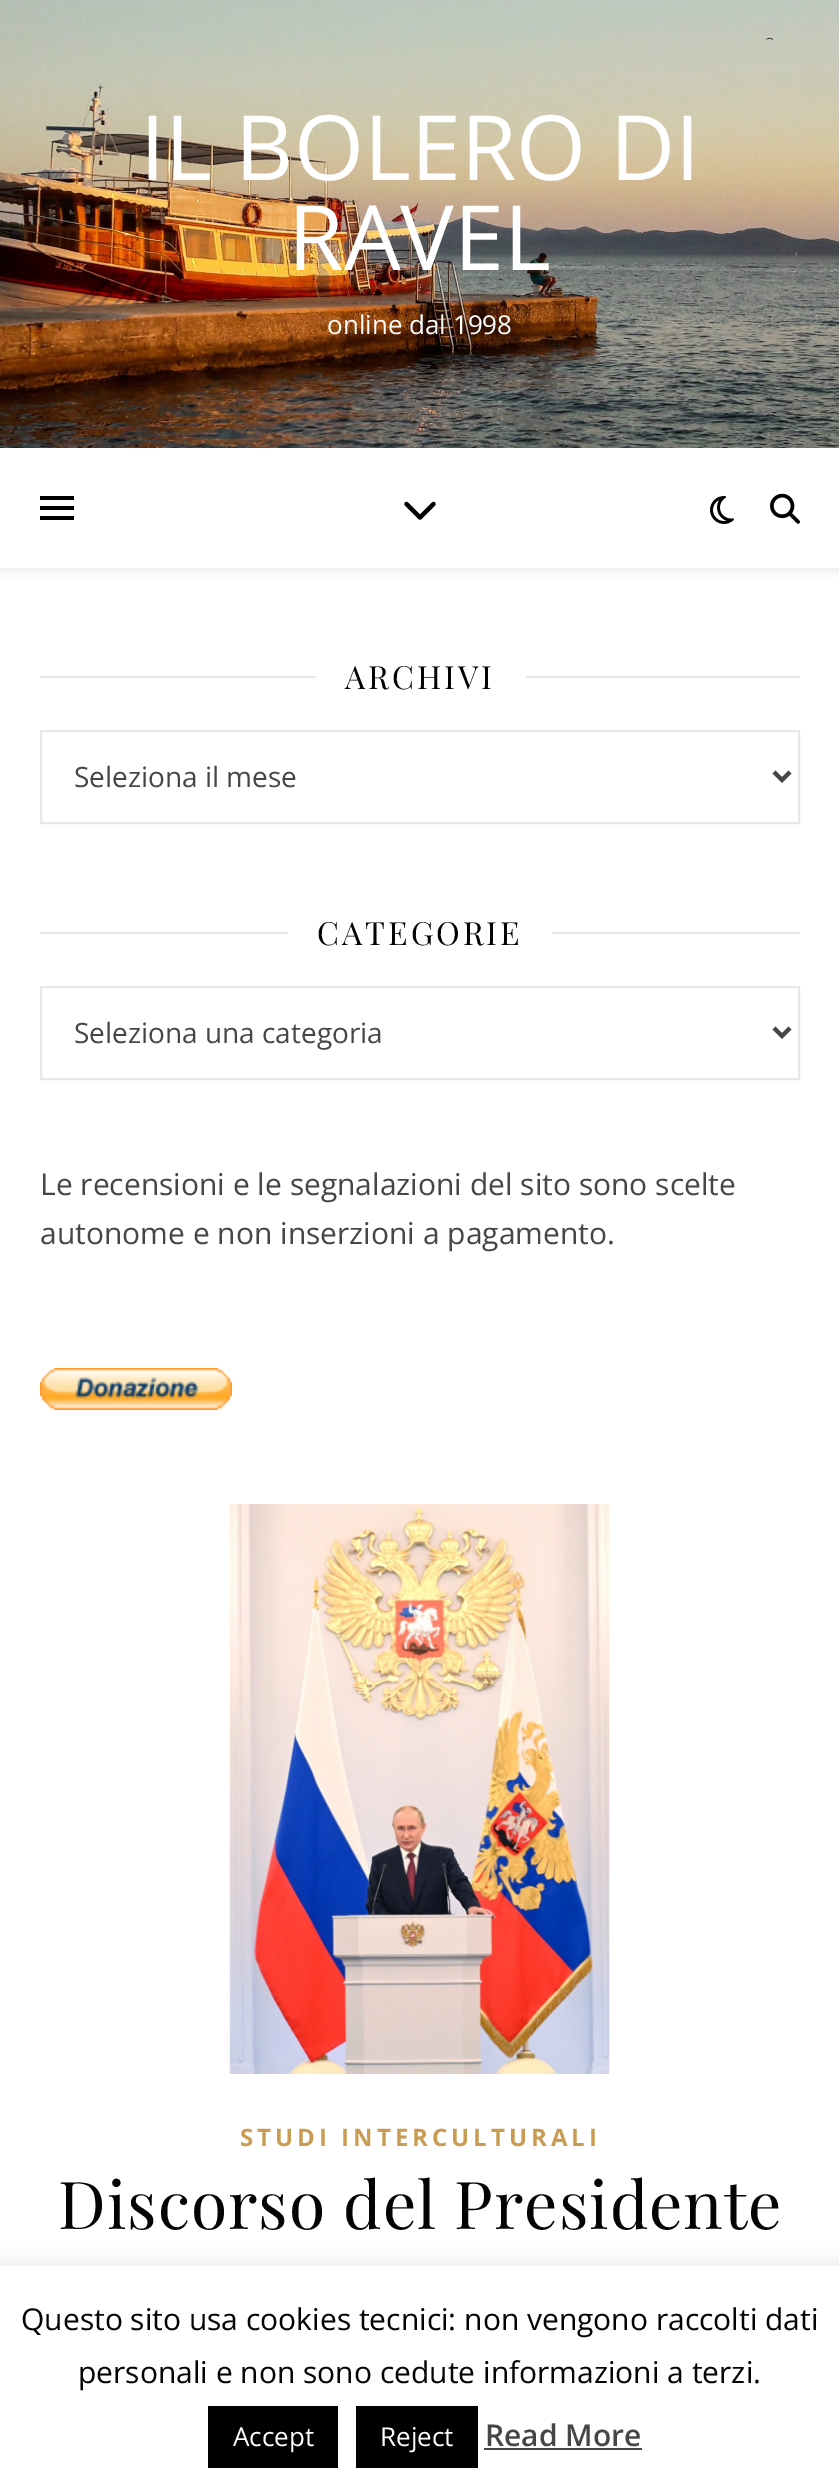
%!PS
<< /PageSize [839 2491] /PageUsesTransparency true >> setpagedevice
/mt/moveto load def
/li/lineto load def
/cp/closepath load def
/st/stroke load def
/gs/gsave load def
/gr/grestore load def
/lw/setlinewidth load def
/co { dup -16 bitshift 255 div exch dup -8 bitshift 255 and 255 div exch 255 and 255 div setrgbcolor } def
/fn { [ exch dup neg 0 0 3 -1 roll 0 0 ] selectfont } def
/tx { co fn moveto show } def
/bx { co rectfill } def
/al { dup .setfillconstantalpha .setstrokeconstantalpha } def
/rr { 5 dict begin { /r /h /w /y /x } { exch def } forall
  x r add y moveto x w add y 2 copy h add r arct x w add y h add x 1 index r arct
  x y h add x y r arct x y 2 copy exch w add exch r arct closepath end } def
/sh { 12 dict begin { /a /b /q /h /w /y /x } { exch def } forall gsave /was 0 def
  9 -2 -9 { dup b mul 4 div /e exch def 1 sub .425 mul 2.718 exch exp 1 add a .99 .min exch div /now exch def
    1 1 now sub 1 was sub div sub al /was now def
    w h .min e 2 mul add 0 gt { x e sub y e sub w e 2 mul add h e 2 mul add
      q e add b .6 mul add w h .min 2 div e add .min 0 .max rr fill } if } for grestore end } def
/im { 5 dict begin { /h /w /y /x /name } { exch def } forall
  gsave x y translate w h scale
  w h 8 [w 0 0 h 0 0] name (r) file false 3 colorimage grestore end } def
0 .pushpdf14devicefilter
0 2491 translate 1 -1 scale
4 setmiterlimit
0 0 839 2491 16#FFFFFF bx
(media/1.raw) 0 0 839 448 im
gs
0 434 mt 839 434 li 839 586 li 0 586 li cp 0 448 mt 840 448 li 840 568 li 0 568 li cp eoclip newpath
16#000000 co
0 450 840 120 0 5 .1 sh
gr
40 496 34 4 16#000000 bx
40 506 34 4 16#000000 bx
40 516 34 4 16#000000 bx
(media/2.raw) 404 501 32 19 im
(media/3.raw) 710 496 24 28 im
(media/4.raw) 770 493 30 31 im
40 676 276 2 16#E8E8E8 bx
526 676 274 2 16#E8E8E8 bx
2 lw
41 731 758 92 rectstroke
16#464646 co
4 lw
774 772 mt 782 780 li 790 772 li st
40 932 248 2 16#E8E8E8 bx
552 932 248 2 16#E8E8E8 bx
2 lw
41 987 758 92 rectstroke
16#464646 co
4 lw
774 1028 mt 782 1036 li 790 1028 li st
(media/5.raw) 40 1368 192 42 im
(media/6.raw) 229 1504 381 570 im
16#ACABAB co
0 2264 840 226 0 10 .3 sh
0 2266 839 225 16#FFFFFF bx
208 2406 130 62 16#000000 bx
356 2406 122 62 16#000000 bx
484 2448 158 2 16#444444 bx
(IL BOLERO DI) 140 180 /OpenSans-Regular 90 16#FFFFFF tx
(RAVEL) 288 270 /OpenSans-Regular 90 16#FFFFFF tx
(online dal 1998) 327 334 /OpenSans-Regular 26 16#FFFFFF tx
/PlayfairDisplay-Regular 32 fn
16#030303 co
345 689 mt 3 0 (ARCHIVI) ashow
(Seleziona il mese) 74 787 /OpenSans-Regular 28 16#464646 tx
/PlayfairDisplay-Regular 32 fn
16#030303 co
317 945 mt 3 0 (CATEGORIE) ashow
(Seleziona una categoria) 74 1043 /OpenSans-Regular 28 16#464646 tx
(Le recensioni e le segnalazioni del sito sono scelte) 40 1195 /OpenSans-Regular 30 16#464646 tx
(autonome e non inserzioni a pagamento.) 40 1244 /OpenSans-Regular 30 16#464646 tx
/OpenSans-Bold 24 fn
16#CA9B52 co
240 2146 mt 4 0 (STUDI INTERCULTURALI) ashow
/PlayfairDisplay-Regular 66 fn
16#030303 co
58 2229 mt 1 0 (Discorso del Presidente) ashow
(Questo sito usa cookies tecnici: non vengono raccolti dati) 21 2330 /OpenSans-Regular 30 16#030303 tx
(personali e non sono cedute informazioni a terzi.) 78 2383 /OpenSans-Regular 30 16#030303 tx
(Accept) 233 2446 /OpenSans-Regular 26 16#FFFFFF tx
(Reject) 380 2446 /OpenSans-Regular 26 16#FFFFFF tx
(Read More) 485 2446 /OpenSans-SemiBold 30 16#464646 tx
.poppdf14devicefilter showpage
